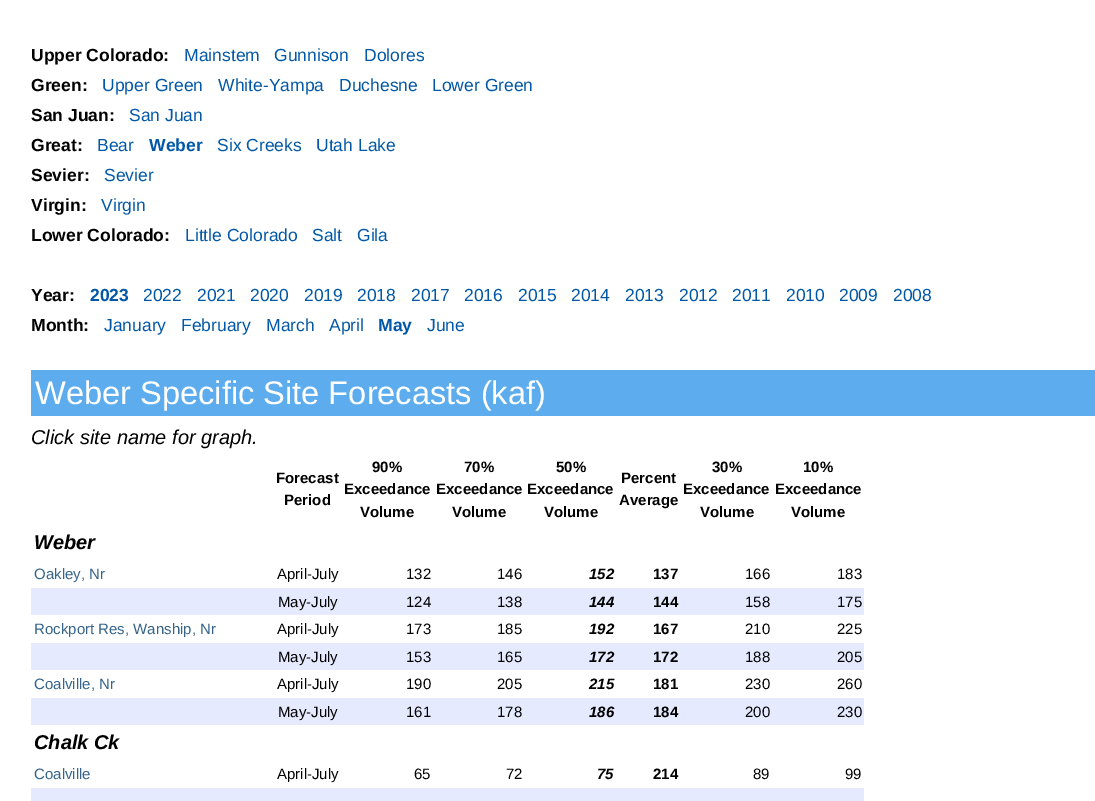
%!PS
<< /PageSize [1095 801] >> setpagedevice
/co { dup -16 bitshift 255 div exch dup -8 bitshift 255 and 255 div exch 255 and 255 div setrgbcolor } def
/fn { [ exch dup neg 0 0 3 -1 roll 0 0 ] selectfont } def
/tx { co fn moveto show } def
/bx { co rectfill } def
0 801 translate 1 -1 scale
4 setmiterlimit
0 0 1095 801 16#FFFFFF bx
31 370 1064 46 16#5CACEE bx
31 588 833 27 16#E5EAFF bx
31 643 833 27 16#E5EAFF bx
31 698 833 27 16#E5EAFF bx
31 788 833 13 16#E5EAFF bx
(Upper Colorado:) 31 61 /LiberationSans-Bold 17.5 16#000000 tx
(Mainstem) 184 61 /LiberationSans-Regular 17.5 16#0058A6 tx
(Gunnison) 274 61 /LiberationSans-Regular 17.5 16#0058A6 tx
(Dolores) 364 61 /LiberationSans-Regular 17.5 16#0058A6 tx
(Green:) 31 91 /LiberationSans-Bold 17.5 16#000000 tx
(Upper Green) 102 91 /LiberationSans-Regular 17.5 16#0058A6 tx
(White-Yampa) 218 91 /LiberationSans-Regular 17.5 16#0058A6 tx
(Duchesne) 339 91 /LiberationSans-Regular 17.5 16#0058A6 tx
(Lower Green) 432 91 /LiberationSans-Regular 17.5 16#0058A6 tx
(San Juan:) 31 121 /LiberationSans-Bold 17.5 16#000000 tx
(San Juan) 129 121 /LiberationSans-Regular 17.5 16#0058A6 tx
(Great:) 31 151 /LiberationSans-Bold 17.5 16#000000 tx
(Bear) 97 151 /LiberationSans-Regular 17.5 16#0058A6 tx
(Weber) 149 151 /LiberationSans-Bold 17.5 16#0058A6 tx
(Six Creeks) 217 151 /LiberationSans-Regular 17.5 16#0058A6 tx
(Utah Lake) 316 151 /LiberationSans-Regular 17.5 16#0058A6 tx
(Sevier:) 31 181 /LiberationSans-Bold 17.5 16#000000 tx
(Sevier) 104 181 /LiberationSans-Regular 17.5 16#0058A6 tx
(Virgin:) 31 211 /LiberationSans-Bold 17.5 16#000000 tx
(Virgin) 101 211 /LiberationSans-Regular 17.5 16#0058A6 tx
(Lower Colorado:) 31 241 /LiberationSans-Bold 17.5 16#000000 tx
(Little Colorado) 185 241 /LiberationSans-Regular 17.5 16#0058A6 tx
(Salt) 312 241 /LiberationSans-Regular 17.5 16#0058A6 tx
(Gila) 357 241 /LiberationSans-Regular 17.5 16#0058A6 tx
(Year:) 31 301 /LiberationSans-Bold 17.5 16#000000 tx
(2023) 90 301 /LiberationSans-Bold 17.5 16#0058A6 tx
(2022) 143 301 /LiberationSans-Regular 17.5 16#0058A6 tx
(2021) 197 301 /LiberationSans-Regular 17.5 16#0058A6 tx
(2020) 250 301 /LiberationSans-Regular 17.5 16#0058A6 tx
(2019) 304 301 /LiberationSans-Regular 17.5 16#0058A6 tx
(2018) 357 301 /LiberationSans-Regular 17.5 16#0058A6 tx
(2017) 411 301 /LiberationSans-Regular 17.5 16#0058A6 tx
(2016) 464 301 /LiberationSans-Regular 17.5 16#0058A6 tx
(2015) 518 301 /LiberationSans-Regular 17.5 16#0058A6 tx
(2014) 571 301 /LiberationSans-Regular 17.5 16#0058A6 tx
(2013) 625 301 /LiberationSans-Regular 17.5 16#0058A6 tx
(2012) 679 301 /LiberationSans-Regular 17.5 16#0058A6 tx
(2011) 732 301 /LiberationSans-Regular 17.5 16#0058A6 tx
(2010) 786 301 /LiberationSans-Regular 17.5 16#0058A6 tx
(2009) 839 301 /LiberationSans-Regular 17.5 16#0058A6 tx
(2008) 893 301 /LiberationSans-Regular 17.5 16#0058A6 tx
(Month:) 31 331 /LiberationSans-Bold 17.5 16#000000 tx
(January) 104 331 /LiberationSans-Regular 17.5 16#0058A6 tx
(February) 181 331 /LiberationSans-Regular 17.5 16#0058A6 tx
(March) 266 331 /LiberationSans-Regular 17.5 16#0058A6 tx
(April) 329 331 /LiberationSans-Regular 17.5 16#0058A6 tx
(May) 378 331 /LiberationSans-Bold 17.5 16#0058A6 tx
(June) 427 331 /LiberationSans-Regular 17.5 16#0058A6 tx
(Weber Specific Site Forecasts \(kaf\)) 35 404 /LiberationSans-Regular 32.6 16#FFFFFF tx
(Click site name for graph.) 31 444 /LiberationSans-Italic 20 16#000000 tx
(Forecast) 276 483 /LiberationSans-Bold 15 16#000000 tx
(Period) 284 505 /LiberationSans-Bold 15 16#000000 tx
(90%) 372 472 /LiberationSans-Bold 15 16#000000 tx
(Exceedance) 344 494 /LiberationSans-Bold 15 16#000000 tx
(Volume) 360 517 /LiberationSans-Bold 15 16#000000 tx
(70%) 464 472 /LiberationSans-Bold 15 16#000000 tx
(Exceedance) 436 494 /LiberationSans-Bold 15 16#000000 tx
(Volume) 452 517 /LiberationSans-Bold 15 16#000000 tx
(50%) 556 472 /LiberationSans-Bold 15 16#000000 tx
(Exceedance) 527 494 /LiberationSans-Bold 15 16#000000 tx
(Volume) 544 517 /LiberationSans-Bold 15 16#000000 tx
(Percent) 621 483 /LiberationSans-Bold 15 16#000000 tx
(Average) 619 505 /LiberationSans-Bold 15 16#000000 tx
(30%) 712 472 /LiberationSans-Bold 15 16#000000 tx
(Exceedance) 683 494 /LiberationSans-Bold 15 16#000000 tx
(Volume) 700 517 /LiberationSans-Bold 15 16#000000 tx
(10%) 803 472 /LiberationSans-Bold 15 16#000000 tx
(Exceedance) 775 494 /LiberationSans-Bold 15 16#000000 tx
(Volume) 791 517 /LiberationSans-Bold 15 16#000000 tx
(Weber) 34 549 /LiberationSans-BoldItalic 20 16#000000 tx
(Oakley, Nr) 34 579 /LiberationSans-Regular 15 16#36648B tx
(April-July) 277 579 /LiberationSans-Regular 15 16#000000 tx
(132) 406 579 /LiberationSans-Regular 15 16#000000 tx
(146) 497 579 /LiberationSans-Regular 15 16#000000 tx
(152) 589 579 /LiberationSans-BoldItalic 15 16#000000 tx
(137) 653 579 /LiberationSans-Bold 15 16#000000 tx
(166) 745 579 /LiberationSans-Regular 15 16#000000 tx
(183) 837 579 /LiberationSans-Regular 15 16#000000 tx
(May-July) 278 607 /LiberationSans-Regular 15 16#000000 tx
(124) 406 607 /LiberationSans-Regular 15 16#000000 tx
(138) 497 607 /LiberationSans-Regular 15 16#000000 tx
(144) 589 607 /LiberationSans-BoldItalic 15 16#000000 tx
(144) 653 607 /LiberationSans-Bold 15 16#000000 tx
(158) 745 607 /LiberationSans-Regular 15 16#000000 tx
(175) 837 607 /LiberationSans-Regular 15 16#000000 tx
(Rockport Res, Wanship, Nr) 34 634 /LiberationSans-Regular 15 16#36648B tx
(April-July) 277 634 /LiberationSans-Regular 15 16#000000 tx
(173) 406 634 /LiberationSans-Regular 15 16#000000 tx
(185) 497 634 /LiberationSans-Regular 15 16#000000 tx
(192) 589 634 /LiberationSans-BoldItalic 15 16#000000 tx
(167) 653 634 /LiberationSans-Bold 15 16#000000 tx
(210) 745 634 /LiberationSans-Regular 15 16#000000 tx
(225) 837 634 /LiberationSans-Regular 15 16#000000 tx
(May-July) 278 662 /LiberationSans-Regular 15 16#000000 tx
(153) 406 662 /LiberationSans-Regular 15 16#000000 tx
(165) 497 662 /LiberationSans-Regular 15 16#000000 tx
(172) 589 662 /LiberationSans-BoldItalic 15 16#000000 tx
(172) 653 662 /LiberationSans-Bold 15 16#000000 tx
(188) 745 662 /LiberationSans-Regular 15 16#000000 tx
(205) 837 662 /LiberationSans-Regular 15 16#000000 tx
(Coalville, Nr) 34 689 /LiberationSans-Regular 15 16#36648B tx
(April-July) 277 689 /LiberationSans-Regular 15 16#000000 tx
(190) 406 689 /LiberationSans-Regular 15 16#000000 tx
(205) 497 689 /LiberationSans-Regular 15 16#000000 tx
(215) 589 689 /LiberationSans-BoldItalic 15 16#000000 tx
(181) 653 689 /LiberationSans-Bold 15 16#000000 tx
(230) 745 689 /LiberationSans-Regular 15 16#000000 tx
(260) 837 689 /LiberationSans-Regular 15 16#000000 tx
(May-July) 278 717 /LiberationSans-Regular 15 16#000000 tx
(161) 406 717 /LiberationSans-Regular 15 16#000000 tx
(178) 497 717 /LiberationSans-Regular 15 16#000000 tx
(186) 589 717 /LiberationSans-BoldItalic 15 16#000000 tx
(184) 653 717 /LiberationSans-Bold 15 16#000000 tx
(200) 745 717 /LiberationSans-Regular 15 16#000000 tx
(230) 837 717 /LiberationSans-Regular 15 16#000000 tx
(Chalk Ck) 34 749 /LiberationSans-BoldItalic 20 16#000000 tx
(Coalville) 34 779 /LiberationSans-Regular 15 16#36648B tx
(April-July) 277 779 /LiberationSans-Regular 15 16#000000 tx
(65) 414 779 /LiberationSans-Regular 15 16#000000 tx
(72) 506 779 /LiberationSans-Regular 15 16#000000 tx
(75) 597 779 /LiberationSans-BoldItalic 15 16#000000 tx
(214) 653 779 /LiberationSans-Bold 15 16#000000 tx
(89) 753 779 /LiberationSans-Regular 15 16#000000 tx
(99) 845 779 /LiberationSans-Regular 15 16#000000 tx
showpage
